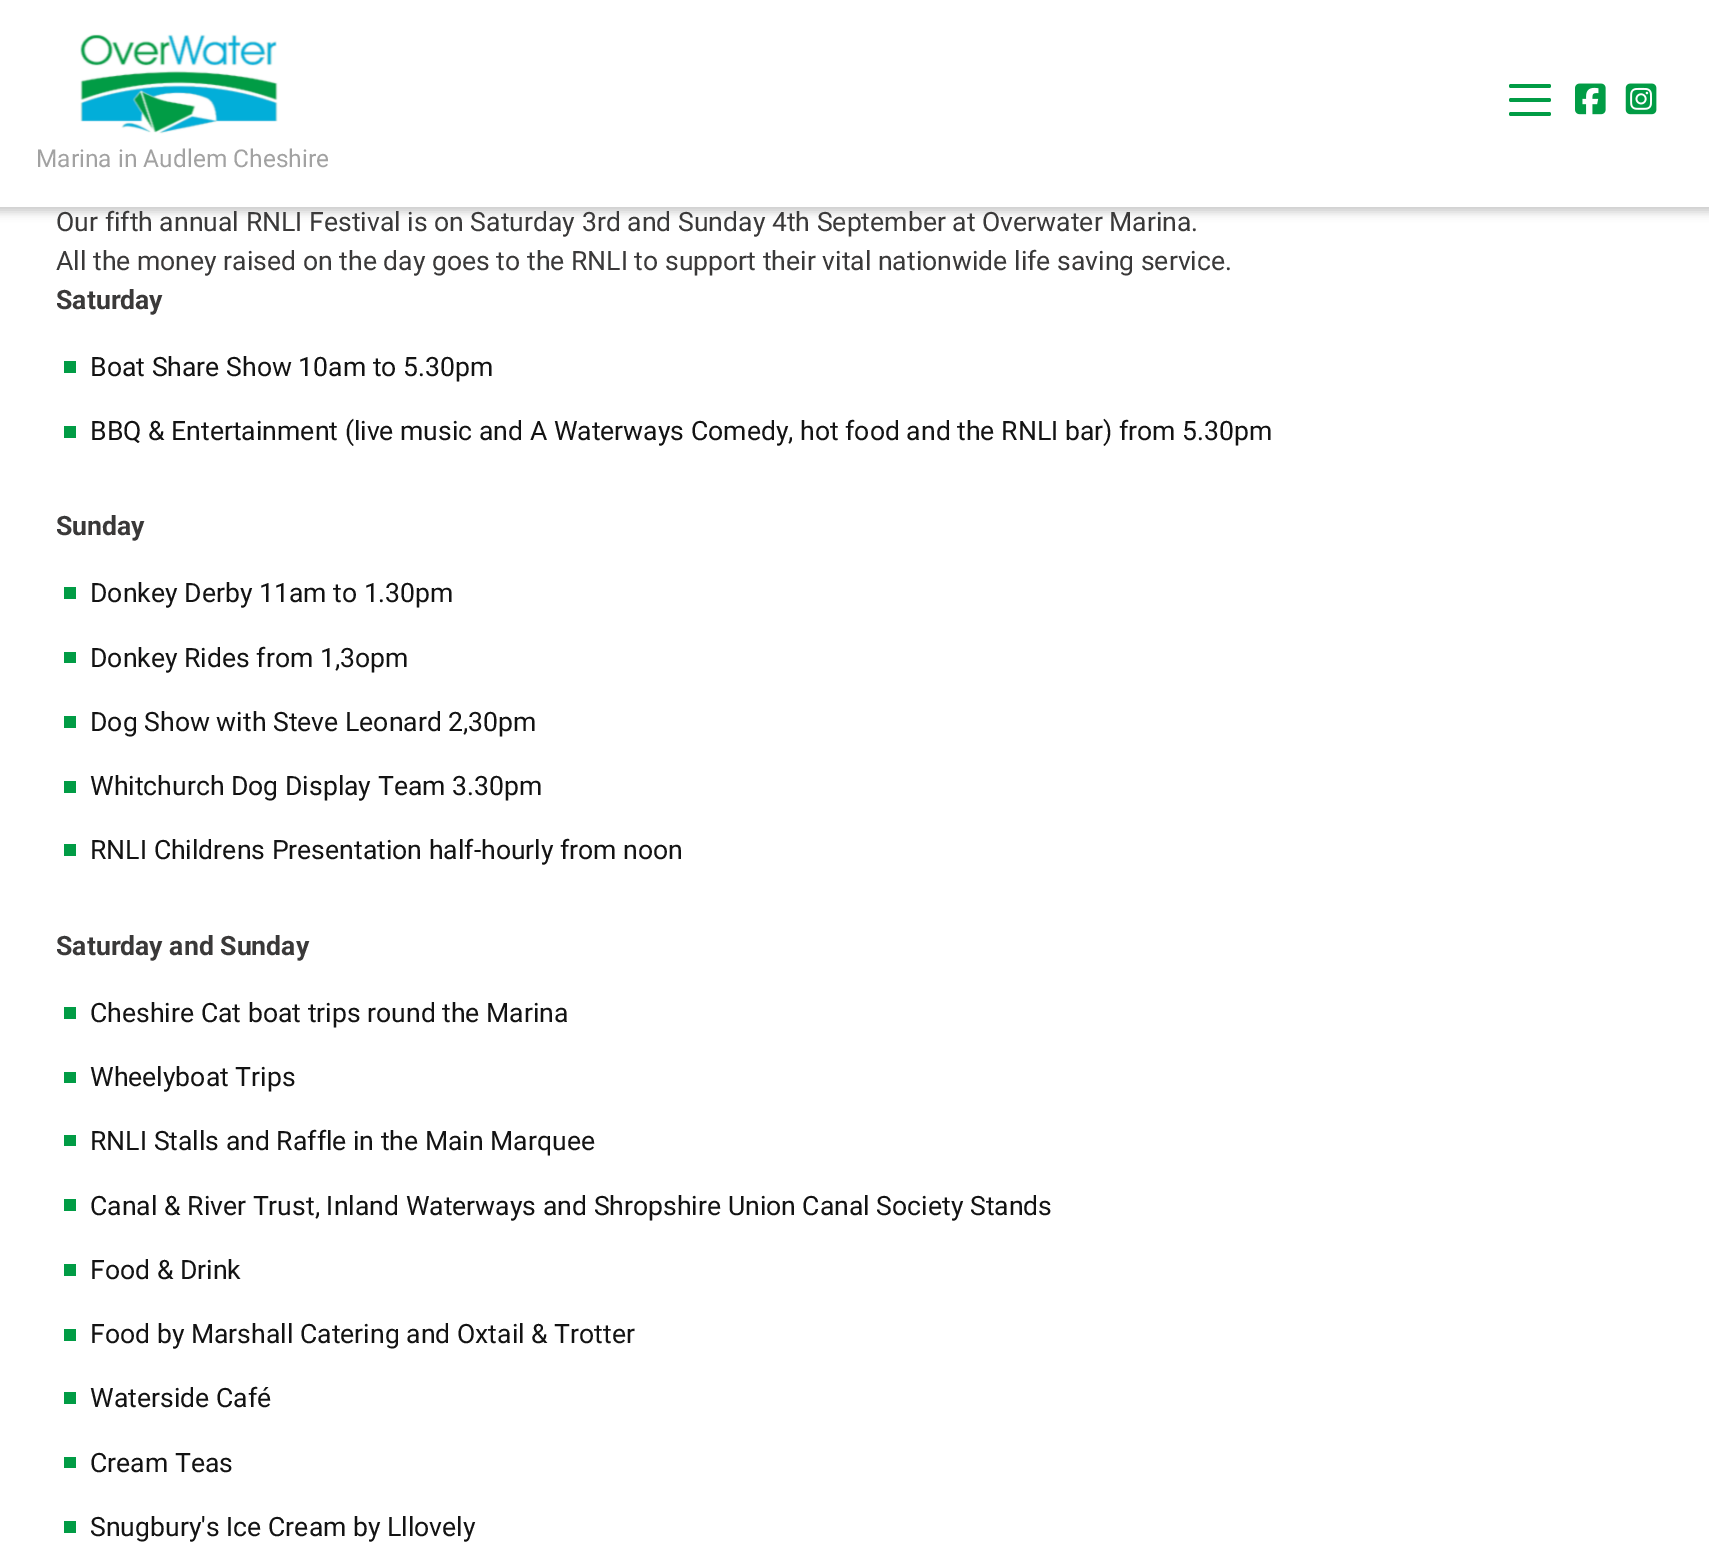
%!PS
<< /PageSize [1709 1543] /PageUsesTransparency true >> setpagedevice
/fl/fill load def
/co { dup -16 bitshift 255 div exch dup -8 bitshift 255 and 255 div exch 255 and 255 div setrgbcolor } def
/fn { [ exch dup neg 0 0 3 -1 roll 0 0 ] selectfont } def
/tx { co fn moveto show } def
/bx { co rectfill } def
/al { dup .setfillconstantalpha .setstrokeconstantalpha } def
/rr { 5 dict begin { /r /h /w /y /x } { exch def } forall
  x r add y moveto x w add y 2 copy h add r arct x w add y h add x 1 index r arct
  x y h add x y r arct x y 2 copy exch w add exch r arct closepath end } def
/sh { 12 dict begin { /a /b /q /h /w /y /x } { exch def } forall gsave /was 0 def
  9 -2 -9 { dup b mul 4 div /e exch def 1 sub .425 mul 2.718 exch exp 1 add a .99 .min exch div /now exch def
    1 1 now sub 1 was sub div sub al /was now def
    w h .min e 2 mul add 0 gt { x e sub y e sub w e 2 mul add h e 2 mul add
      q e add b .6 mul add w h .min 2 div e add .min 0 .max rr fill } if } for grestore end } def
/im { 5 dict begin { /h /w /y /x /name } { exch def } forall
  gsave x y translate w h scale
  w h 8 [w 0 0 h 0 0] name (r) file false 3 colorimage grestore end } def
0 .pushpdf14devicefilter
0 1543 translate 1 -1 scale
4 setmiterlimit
0 0 1709 1543 16#FFFFFF bx
16#000000 co
-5 -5 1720 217 0 4.5 .2 sh
0 0 1709 207 16#FFFFFF bx
16#019C45 co
1509 84 42 4 2 rr fl
1509 98 42 4 2 rr fl
1509 112 42 4 2 rr fl
(media/1.raw) 80 34 198 100 im
(media/2.raw) 1575 83 31 32 im
(media/3.raw) 1625 83 32 32 im
64 361 12 12 16#019C45 bx
64 426 12 12 16#019C45 bx
64 587 12 12 16#019C45 bx
64 652 12 11 16#019C45 bx
64 716 12 12 16#019C45 bx
64 781 12 12 16#019C45 bx
64 844 12 12 16#019C45 bx
64 1007 12 12 16#019C45 bx
64 1072 12 11 16#019C45 bx
64 1135 12 11 16#019C45 bx
64 1199 12 12 16#019C45 bx
64 1264 12 12 16#019C45 bx
64 1329 12 12 16#019C45 bx
64 1392 12 12 16#019C45 bx
64 1457 12 11 16#019C45 bx
64 1521 12 12 16#019C45 bx
(Marina in Audlem Cheshire) 36 167 /Roboto-Regular 24.5 16#A2A2A2 tx
(Our fifth annual RNLI Festival is on Saturday 3rd and Sunday 4th September at Overwater Marina.) 56 231 /Roboto-Regular 26.6 16#3A3939 tx
(All the money raised on the day goes to the RNLI to support their vital nationwide life saving service.) 56 270 /Roboto-Regular 26.6 16#3A3939 tx
(Saturday) 56 309 /Roboto-Bold 26.6 16#3A3939 tx
(Boat Share Show 10am to 5.30pm) 90 376 /Roboto-Regular 26.6 16#131313 tx
(BBQ & Entertainment \(live music and A Waterways Comedy, hot food and the RNLI bar\) from 5.30pm) 90 440 /Roboto-Regular 26.6 16#131313 tx
(Sunday) 56 535 /Roboto-Bold 26.6 16#3A3939 tx
(Donkey Derby 11am to 1.30pm) 90 602 /Roboto-Regular 26.6 16#131313 tx
(Donkey Rides from 1,3opm) 90 667 /Roboto-Regular 26.6 16#131313 tx
(Dog Show with Steve Leonard 2,30pm) 90 731 /Roboto-Regular 26.6 16#131313 tx
(Whitchurch Dog Display Team 3.30pm) 90 795 /Roboto-Regular 26.6 16#131313 tx
(RNLI Childrens Presentation half-hourly from noon) 90 859 /Roboto-Regular 26.6 16#131313 tx
(Saturday and Sunday) 56 955 /Roboto-Bold 26.6 16#3A3939 tx
(Cheshire Cat boat trips round the Marina) 90 1022 /Roboto-Regular 26.6 16#131313 tx
(Wheelyboat Trips) 90 1086 /Roboto-Regular 26.6 16#131313 tx
(RNLI Stalls and Raffle in the Main Marquee) 90 1150 /Roboto-Regular 26.6 16#131313 tx
(Canal & River Trust, Inland Waterways and Shropshire Union Canal Society Stands) 90 1215 /Roboto-Regular 26.6 16#131313 tx
(Food & Drink) 90 1279 /Roboto-Regular 26.6 16#131313 tx
(Food by Marshall Catering and Oxtail & Trotter) 90 1343 /Roboto-Regular 26.6 16#131313 tx
(Waterside Café) 90 1407 /Roboto-Regular 26.6 16#131313 tx
(Cream Teas) 90 1472 /Roboto-Regular 26.6 16#131313 tx
(Snugbury's Ice Cream by Lllovely) 90 1536 /Roboto-Regular 26.6 16#131313 tx
.poppdf14devicefilter showpage
